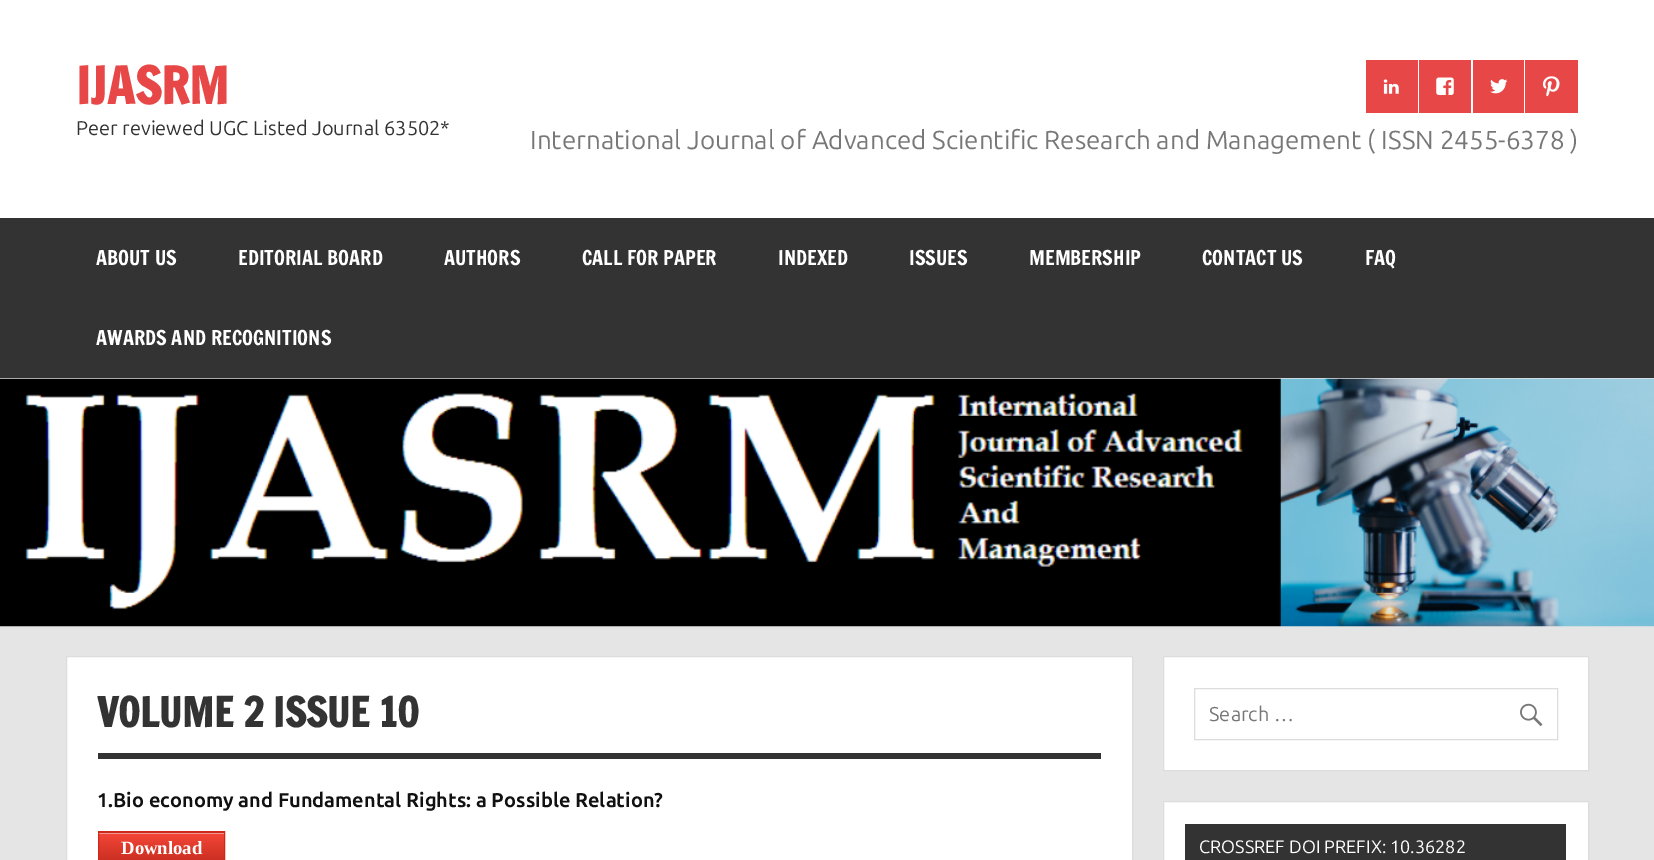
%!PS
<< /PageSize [1654 860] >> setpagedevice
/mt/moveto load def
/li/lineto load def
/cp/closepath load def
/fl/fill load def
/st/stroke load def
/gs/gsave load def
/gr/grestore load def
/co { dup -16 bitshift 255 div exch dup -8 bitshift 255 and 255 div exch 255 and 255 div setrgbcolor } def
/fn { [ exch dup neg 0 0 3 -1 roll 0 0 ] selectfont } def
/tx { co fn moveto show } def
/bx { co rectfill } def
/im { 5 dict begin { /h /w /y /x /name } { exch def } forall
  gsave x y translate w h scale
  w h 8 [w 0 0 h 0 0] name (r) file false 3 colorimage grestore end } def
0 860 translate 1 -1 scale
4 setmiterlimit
0 0 1654 860 16#E5E5E5 bx
0 0 1654 218 16#FFFFFF bx
1366 60 52 53 16#E84747 bx
(media/1.raw) 1383 79 16 15 im
1419 60 52 53 16#E84747 bx
(media/2.raw) 1436 77 18 18 im
1473 60 51 53 16#E84747 bx
(media/3.raw) 1490 79 18 15 im
1525 60 53 53 16#E84747 bx
(media/4.raw) 1542 76 18 21 im
0 218 1654 160 16#333333 bx
(media/5.raw) 0 378 1654 249 im
16#FFFFFF co
66.5 656.5 mt 1132.5 656.5 li 1132.5 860.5 li 66.5 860.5 li cp gs fl gr
16#DDDDDD co
st
98 753 1003 6 16#333333 bx
gs 98 832 mt 225 832 li 225 833 li 98 833 li cp clip newpath
<< /ShadingType 2 /ColorSpace /DeviceRGB /Coords [99 801 99 833] /Extend [true true] /Function << /FunctionType 3 /Domain [0 1] /Functions [<< /FunctionType 2 /Domain [0 1] /C0 [.949 .271 .216] /C1 [.949 .271 .216] /N 1 >> << /FunctionType 2 /Domain [0 1] /C0 [.949 .271 .216] /C1 [.776 .176 .122] /N 1 >>] /Bounds [.05] /Encode [0 1 0 1] >> >> shfill gr
gs 99 834 mt 224 834 li 224 860 li 99 860 li cp clip newpath
<< /ShadingType 2 /ColorSpace /DeviceRGB /Coords [99 833 99 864] /Extend [true true] /Function << /FunctionType 3 /Domain [0 1] /Functions [<< /FunctionType 2 /Domain [0 1] /C0 [.949 .271 .216] /C1 [.949 .271 .216] /N 1 >> << /FunctionType 2 /Domain [0 1] /C0 [.949 .271 .216] /C1 [.776 .176 .122] /N 1 >>] /Bounds [.05] /Encode [0 1 0 1] >> >> shfill gr
99 833 125 1 16#F5978E bx
16#D02718 co
98.5 831.5 126 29 rectstroke
16#FFFFFF co
1163.5 656.5 mt 1588.5 656.5 li 1588.5 770.5 li 1163.5 770.5 li cp gs fl gr
16#DDDDDD co
st
1194.5 688.5 363 51 rectstroke
(media/6.raw) 1520 703 23 24 im
16#FFFFFF co
1163.5 801.5 mt 1588.5 801.5 li 1588.5 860.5 li 1163.5 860.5 li cp gs fl gr
16#DDDDDD co
st
1185 824 381 36 16#333333 bx
(IJASRM) 76 104 /FrancoisOne-Bold 50 16#E84747 tx
(Peer reviewed UGC Listed Journal 63502*) 76 135 /Ubuntu-Regular 20 16#333333 tx
(International Journal of Advanced Scientific Research and Management \( ISSN 2455-6378 \)) 530 149 /Ubuntu-Regular 26 16#777777 tx
(ABOUT US) 96 265 /FrancoisOne-Regular 20 16#FFFFFF tx
(EDITORIAL BOARD) 238 265 /FrancoisOne-Regular 20 16#FFFFFF tx
(AUTHORS) 444 265 /FrancoisOne-Regular 20 16#FFFFFF tx
(CALL FOR PAPER) 582 265 /FrancoisOne-Regular 20 16#FFFFFF tx
(INDEXED) 778 265 /FrancoisOne-Regular 20 16#FFFFFF tx
(ISSUES) 909 265 /FrancoisOne-Regular 20 16#FFFFFF tx
(MEMBERSHIP) 1029 265 /FrancoisOne-Regular 20 16#FFFFFF tx
(CONTACT US) 1202 265 /FrancoisOne-Regular 20 16#FFFFFF tx
(FAQ) 1365 265 /FrancoisOne-Regular 20 16#FFFFFF tx
(AWARDS AND RECOGNITIONS) 96 345 /FrancoisOne-Regular 20 16#FFFFFF tx
(VOLUME 2 ISSUE 10) 97 727 /FrancoisOne-Bold 40 16#333333 tx
(1.Bio economy and Fundamental Rights: a Possible Relation?) 97 807 /Ubuntu-Bold 20 16#111111 tx
(Download) 121 854 /LiberationSerif-Bold 18.75 16#FFFFFF tx
(Search …) 1209 721 /Ubuntu-Regular 20 16#777777 tx
(CROSSREF DOI PREFIX: 10.36282) 1199 853 /Ubuntu-Regular 18 16#FFFFFF tx
showpage
